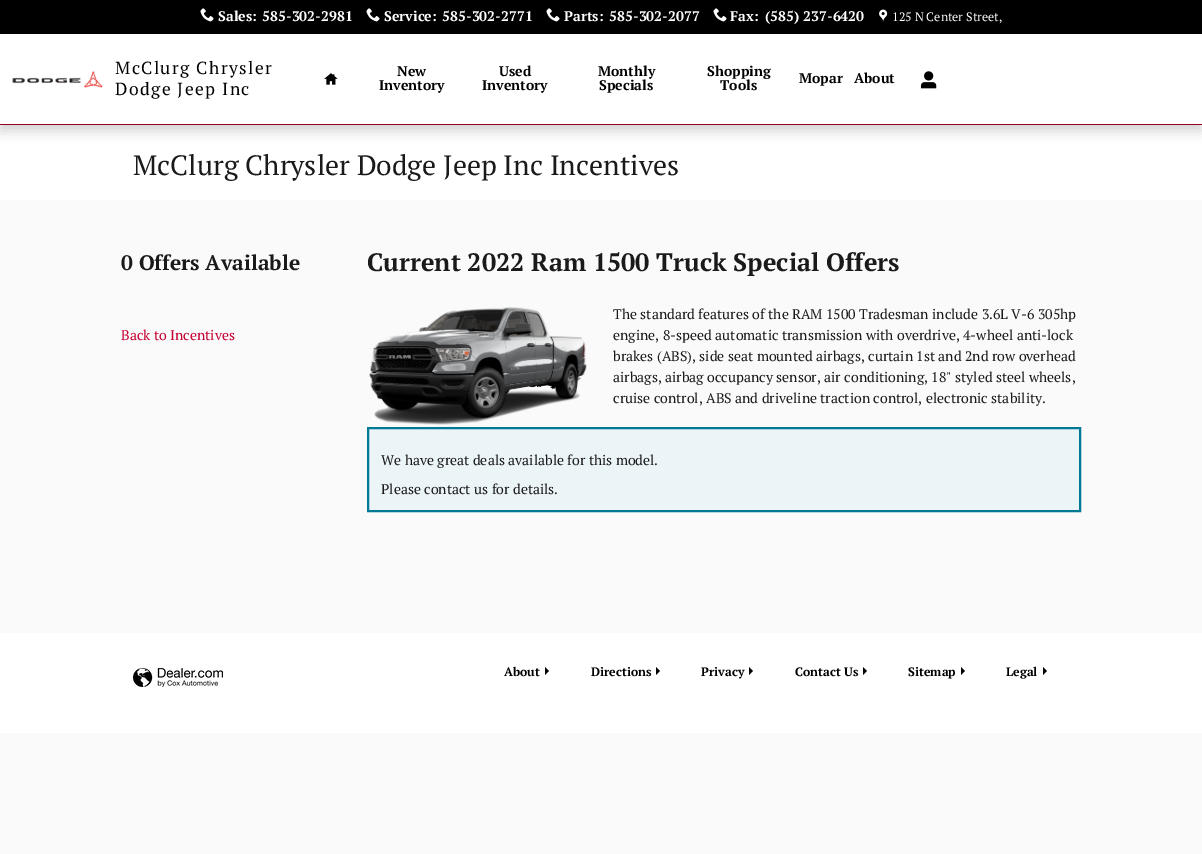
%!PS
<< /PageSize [1202 854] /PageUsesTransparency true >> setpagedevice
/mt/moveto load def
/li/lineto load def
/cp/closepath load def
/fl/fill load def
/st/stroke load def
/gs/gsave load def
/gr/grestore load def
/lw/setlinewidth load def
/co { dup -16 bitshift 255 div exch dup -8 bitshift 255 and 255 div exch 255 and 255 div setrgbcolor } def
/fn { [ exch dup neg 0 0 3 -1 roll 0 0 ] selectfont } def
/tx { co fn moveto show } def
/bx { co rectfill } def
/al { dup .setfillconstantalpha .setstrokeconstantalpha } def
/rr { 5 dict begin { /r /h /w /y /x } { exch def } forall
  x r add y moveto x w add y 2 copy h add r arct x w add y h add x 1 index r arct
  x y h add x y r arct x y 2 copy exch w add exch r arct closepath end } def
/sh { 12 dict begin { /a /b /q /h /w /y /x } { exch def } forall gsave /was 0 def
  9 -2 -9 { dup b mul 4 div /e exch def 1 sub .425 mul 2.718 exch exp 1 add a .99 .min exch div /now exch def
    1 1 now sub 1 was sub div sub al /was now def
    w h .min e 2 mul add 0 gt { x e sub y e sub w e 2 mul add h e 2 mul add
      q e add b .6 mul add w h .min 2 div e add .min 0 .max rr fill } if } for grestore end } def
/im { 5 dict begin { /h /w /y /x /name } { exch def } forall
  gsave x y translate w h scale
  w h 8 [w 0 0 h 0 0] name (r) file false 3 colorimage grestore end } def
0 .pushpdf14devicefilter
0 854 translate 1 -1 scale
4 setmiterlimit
0 0 1202 854 16#FAFAFA bx
0 125 1202 75 16#FFFFFF bx
16#000000 co
0 6 1202 125 0 6 .18 sh
0 34 1202 90 16#FFFFFF bx
0 124 1202 1 16#90001D bx
0 0 1202 34 16#000000 bx
(media/1.raw) 200 8 14 14 im
(media/1.raw) 366 8 14 14 im
(media/1.raw) 546 8 14 14 im
(media/1.raw) 713 8 14 14 im
(media/2.raw) 879 9 9 13 im
(media/3.raw) 12 71 91 17 im
(media/4.raw) 324 73 14 12 im
(media/5.raw) 920 71 17 18 im
(media/6.raw) 369 307 218 118 im
16#EBF4F7 co
368 428 mt 1080 428 li 1080 511 li 368 511 li cp gs fl gr
16#007896 co
2 lw
st
0 633 1202 100 16#FFFFFF bx
(media/7.raw) 133 668 90 19 im
16#000000 co
545 667 mt 545 675 li 549 671 li cp fl
656 667 mt 656 675 li 660 671 li cp fl
749 667 mt 749 675 li 753 671 li cp fl
863 667 mt 863 675 li 867 671 li cp fl
961 667 mt 961 675 li 965 671 li cp fl
1043 667 mt 1043 675 li 1047 671 li cp fl
(Sales:) 218 21 /PTSerif-Bold 14 16#FFFFFF tx
(585-302-2981) 262 21 /PTSerif-Bold 14 16#FFFFFF tx
(Service:) 384 21 /PTSerif-Bold 14 16#FFFFFF tx
(585-302-2771) 442 21 /PTSerif-Bold 14 16#FFFFFF tx
(Parts:) 564 21 /PTSerif-Bold 14 16#FFFFFF tx
(585-302-2077) 609 21 /PTSerif-Bold 14 16#FFFFFF tx
(Fax:) 730 21 /PTSerif-Bold 14 16#FFFFFF tx
(\(585\) 237-6420) 765 21 /PTSerif-Bold 14 16#FFFFFF tx
(125 N Center Street,) 892 21 /PTSerif-Regular 12.25 16#FFFFFF tx
/PTSerif-Regular 17.5 fn
16#000000 co
115 74 mt 1.4 0 (McClurg Chrysler) ashow
115 95 mt 1.4 0 (Dodge Jeep Inc) ashow
(New) 397 76 /PTSerif-Bold 14 16#000000 tx
(Inventory) 379 90 /PTSerif-Bold 14 16#000000 tx
(Used) 499 76 /PTSerif-Bold 14 16#000000 tx
(Inventory) 482 90 /PTSerif-Bold 14 16#000000 tx
(Monthly) 598 76 /PTSerif-Bold 14 16#000000 tx
(Specials) 599 90 /PTSerif-Bold 14 16#000000 tx
(Shopping) 707 76 /PTSerif-Bold 14 16#000000 tx
(Tools) 720 90 /PTSerif-Bold 14 16#000000 tx
(Mopar) 799 83 /PTSerif-Bold 14 16#000000 tx
(About) 854 83 /PTSerif-Bold 14 16#000000 tx
(McClurg Chrysler Dodge Jeep Inc Incentives) 133 175 /PTSerif-Regular 28 16#1A1A1A tx
(0 Offers Available) 121 270 /PTSerif-Bold 21 16#1A1A1A tx
(Back to Incentives) 121 340 /PTSerif-Regular 14 16#C3002F tx
(Current 2022 Ram 1500 Truck Special Offers) 367 271 /PTSerif-Bold 25.2 16#1A1A1A tx
(The standard features of the RAM 1500 Tradesman include 3.6L V-6 305hp) 613 319 /PTSerif-Regular 14 16#1A1A1A tx
(engine, 8-speed automatic transmission with overdrive, 4-wheel anti-lock) 613 340 /PTSerif-Regular 14 16#1A1A1A tx
(brakes \(ABS\), side seat mounted airbags, curtain 1st and 2nd row overhead) 613 361 /PTSerif-Regular 14 16#1A1A1A tx
(airbags, airbag occupancy sensor, air conditioning, 18" styled steel wheels,) 613 382 /PTSerif-Regular 14 16#1A1A1A tx
(cruise control, ABS and driveline traction control, electronic stability.) 613 403 /PTSerif-Regular 14 16#1A1A1A tx
(We have great deals available for this model.) 381 465 /PTSerif-Regular 14 16#1A1A1A tx
(Please contact us for details.) 381 494 /PTSerif-Regular 14 16#1A1A1A tx
(About) 504 676 /PTSerif-Bold 12.25 16#000000 tx
(Directions) 591 676 /PTSerif-Bold 12.25 16#000000 tx
(Privacy) 701 676 /PTSerif-Bold 12.25 16#000000 tx
(Contact Us) 795 676 /PTSerif-Bold 12.25 16#000000 tx
(Sitemap) 908 676 /PTSerif-Bold 12.25 16#000000 tx
(Legal) 1006 676 /PTSerif-Bold 12.25 16#000000 tx
.poppdf14devicefilter showpage
